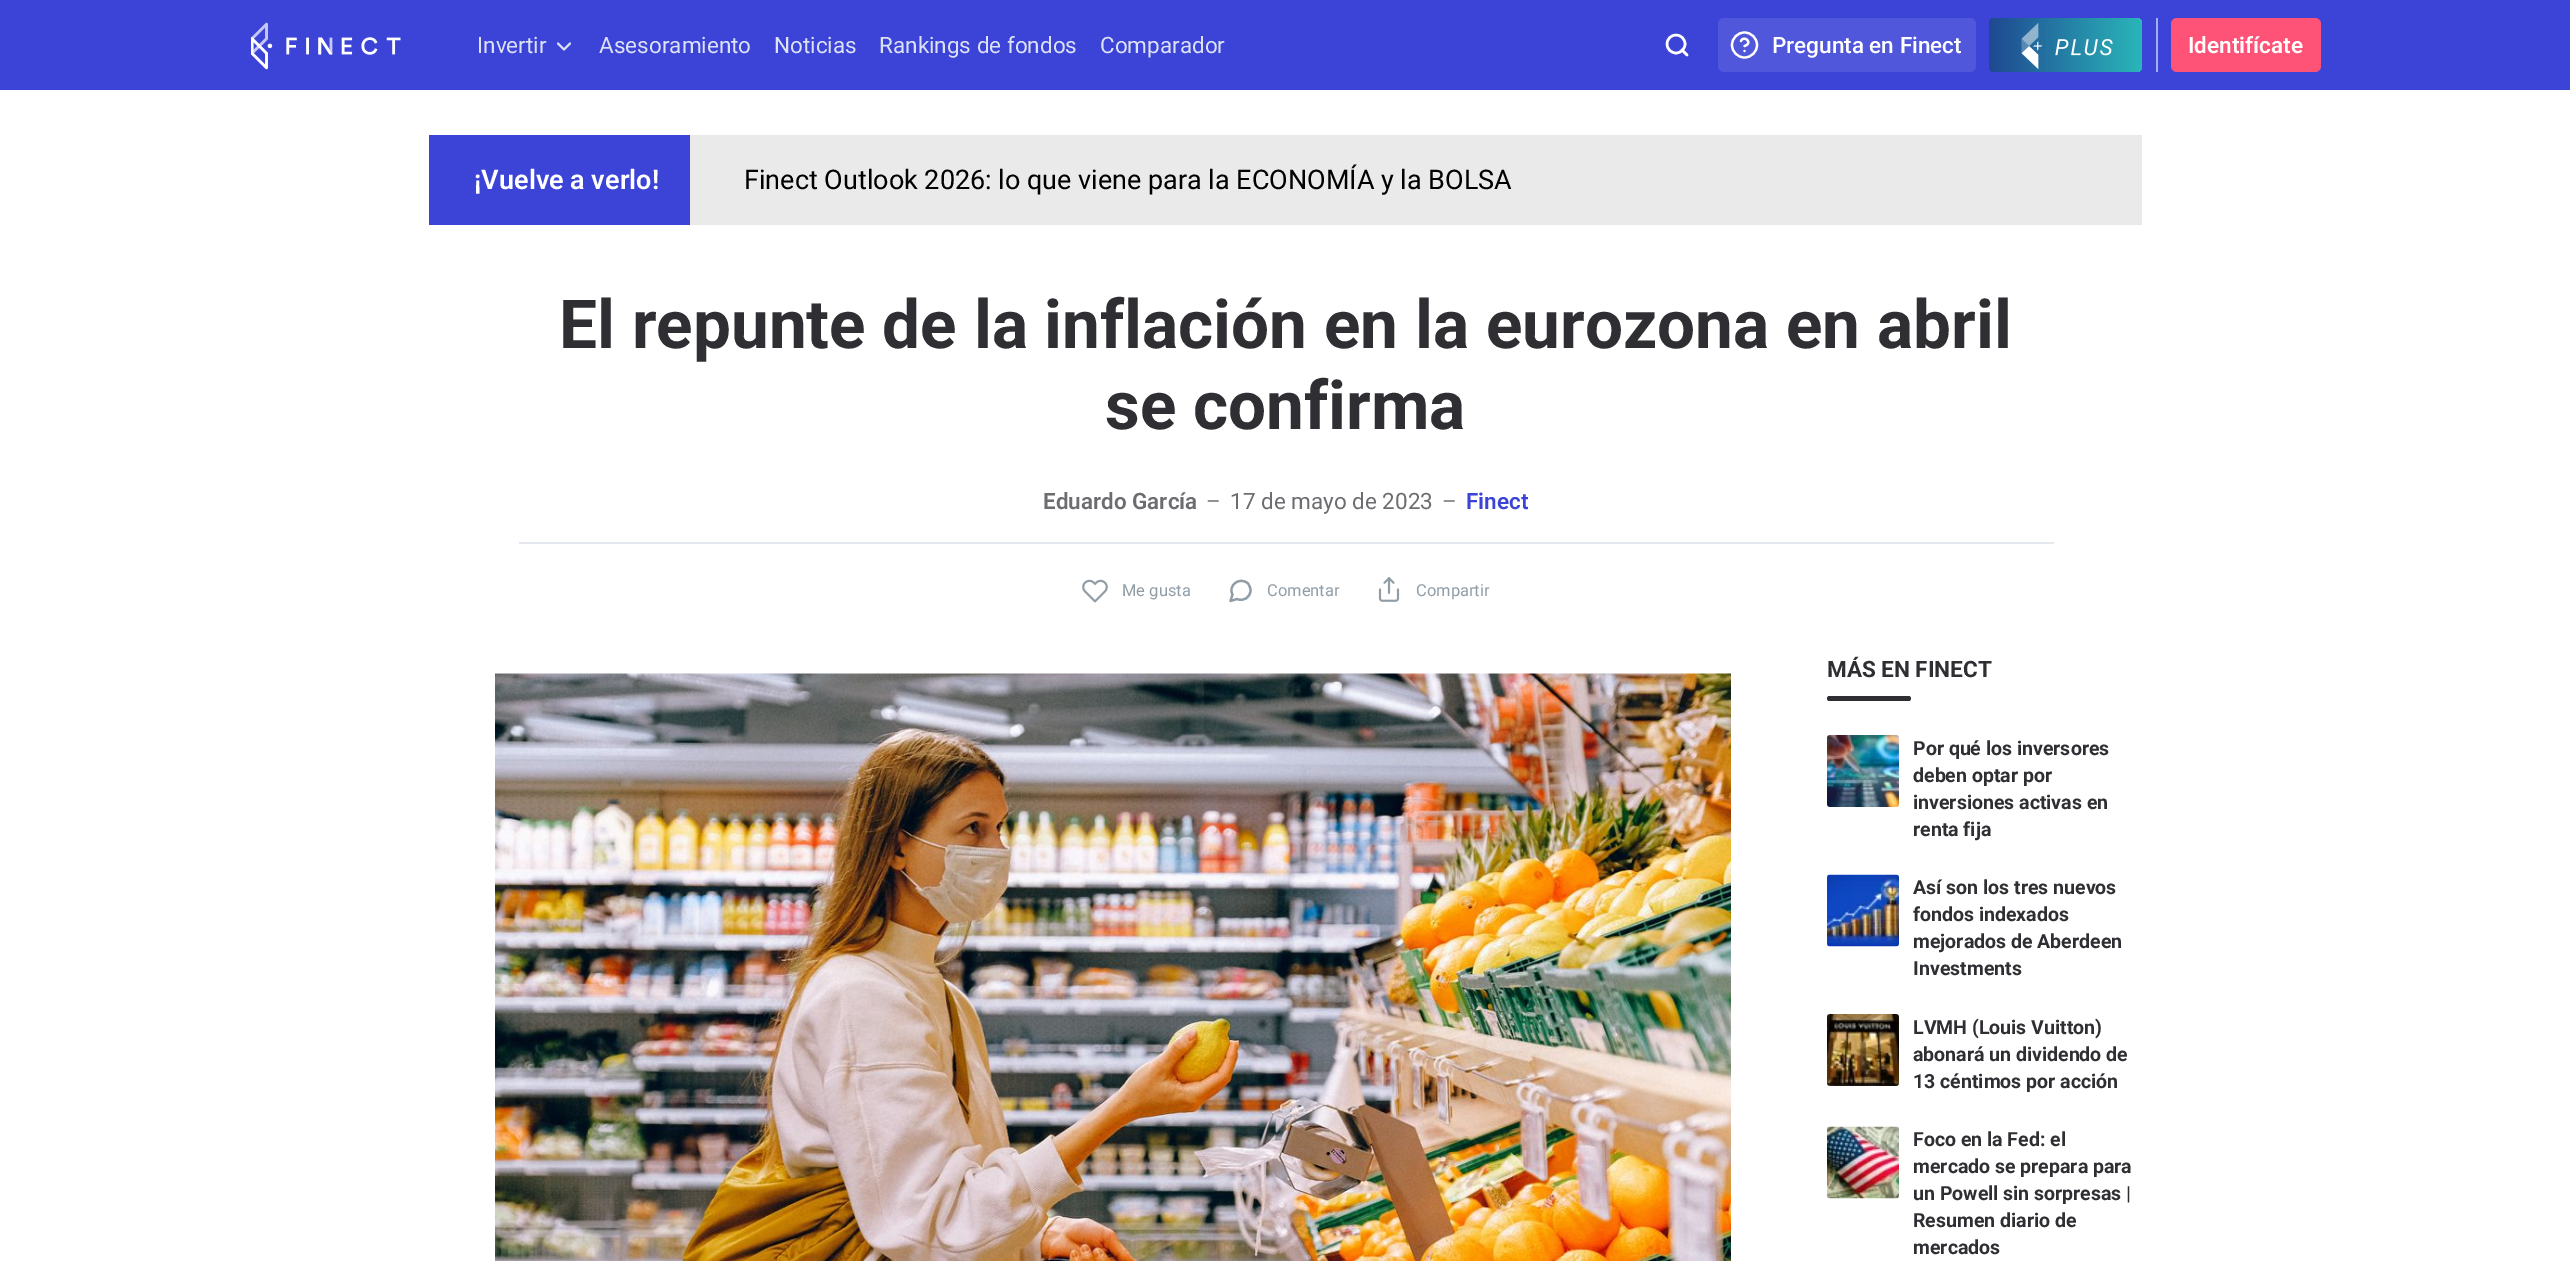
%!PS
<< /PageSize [2570 1261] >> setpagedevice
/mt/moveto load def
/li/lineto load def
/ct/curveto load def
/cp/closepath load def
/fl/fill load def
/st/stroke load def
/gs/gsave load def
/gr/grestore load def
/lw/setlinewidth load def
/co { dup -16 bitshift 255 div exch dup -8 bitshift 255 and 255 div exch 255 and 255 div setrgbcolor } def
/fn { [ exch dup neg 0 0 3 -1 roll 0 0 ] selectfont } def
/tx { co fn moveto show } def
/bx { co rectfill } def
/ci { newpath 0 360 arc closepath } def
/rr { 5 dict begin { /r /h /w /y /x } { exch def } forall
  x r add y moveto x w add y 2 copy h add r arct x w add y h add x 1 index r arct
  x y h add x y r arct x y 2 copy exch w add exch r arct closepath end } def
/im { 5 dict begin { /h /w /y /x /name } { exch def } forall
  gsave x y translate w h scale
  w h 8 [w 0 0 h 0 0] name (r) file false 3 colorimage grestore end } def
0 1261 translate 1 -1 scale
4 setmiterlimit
0 0 2570 1261 16#FFFFFF bx
0 0 2570 90 16#3C44D7 bx
(media/1.raw) 251 22 150 48 im
16#DCE1F5 co
2 lw
1 setlinecap
1 setlinejoin
558 43.5 mt 564 49.5 li 570 43.5 li st
16#FFFFFF co
2.5 lw
0 setlinecap
0 setlinejoin
1676 44 9 ci st
1 setlinecap
1 setlinejoin
1687 55 mt 1682 50 li st
16#5057DB co
1718 18 258 54 6 rr fl
16#FFFFFF co
2.2 lw
1741 41 mt 1743.5 34.5 1754 43 1744.5 46 ct st
0 setlinecap
0 setlinejoin
1744.5 45 12.5 ci st
1 setlinecap
1 setlinejoin
1744.5 51 mt 1744.5 51 li st
gs 1989 18 153 54 6 rr clip newpath
<< /ShadingType 2 /ColorSpace /DeviceRGB /Coords [1989 45 2142 45] /Extend [true true] /Function << /FunctionType 2 /Domain [0 1] /C0 [.122 .282 .569] /C1 [.165 .714 .725] /N 1 >> >> shfill gr
(media/2.raw) 2021 22 22 48 im
(media/3.raw) 2055 39 58 17 im
2156 18 2 54 16#A3AFEA bx
16#FF5277 co
2171 18 150 54 6 rr fl
690 135 1452 90 16#EAEAEA bx
429 135 261 90 16#3C44D7 bx
519 542 1535 2 16#E4E9EF bx
(media/4.raw) 1082 579 26 24 im
16#919DA6 co
1250.5 590.5 mt 1250.5 597.5 1243 602 1237 599 ct 1230.5 601 li 1232.5 594.5 li 1227.5 585.5 1240 576 1248 583.5 ct 1249.5 585.5 1250.5 588 1250.5 590.5 ct cp st
(media/5.raw) 1378 577 22 25 im
(media/6.raw) 495 673 1236 588 im
16#2E2E33 co
1827 696 84 5 2.5 rr fl
(media/7.raw) 1827 735 72 72 im
(media/8.raw) 1827 874 72 73 im
(media/9.raw) 1827 1014 72 72 im
(media/10.raw) 1827 1126 72 73 im
(Invertir) 477 53 /Roboto-Regular 22.5 16#DCE1F5 tx
(Asesoramiento) 599 53 /Roboto-Regular 22.5 16#DCE1F5 tx
(Noticias) 774 53 /Roboto-Regular 22.5 16#DCE1F5 tx
(Rankings de fondos) 879 53 /Roboto-Regular 22.5 16#DCE1F5 tx
(Comparador) 1100 53 /Roboto-Regular 22.5 16#DCE1F5 tx
(Pregunta en Finect) 1772 53 /Roboto-Medium 22.5 16#FFFFFF tx
(Identifícate) 2188 53 /Roboto-SemiBold 22.5 16#FFFFFF tx
(¡Vuelve a verlo!) 474 189 /Roboto-SemiBold 27 16#FFFFFF tx
(Finect Outlook 2026: lo que viene para la ECONOMÍA y la BOLSA) 744 189 /Roboto-Regular 27 16#000000 tx
(El repunte de la inflación en la eurozona en abril) 559 348 /Roboto-Bold 67.5 16#2E2E33 tx
(se confirma) 1105 429 /Roboto-Bold 67.5 16#2E2E33 tx
(Eduardo García) 1043 509 /Roboto-SemiBold 22.5 16#6D6D71 tx
(–) 1206 509 /Roboto-Regular 22.5 16#6D6D71 tx
(17 de mayo de 2023) 1230 509 /Roboto-Regular 22.5 16#6D6D71 tx
(–) 1442 509 /Roboto-Regular 22.5 16#6D6D71 tx
(Finect) 1466 509 /Roboto-SemiBold 22.5 16#3C44D7 tx
(Me gusta) 1122 596 /Roboto-Regular 16.5 16#919DA6 tx
(Comentar) 1267 596 /Roboto-Regular 16.5 16#919DA6 tx
(Compartir) 1416 596 /Roboto-Regular 16.5 16#919DA6 tx
(MÁS EN FINECT) 1827 677 /Roboto-Bold 22.5 16#2E2E33 tx
(Por qué los inversores) 1913 755 /Roboto-Bold 19.5 16#2E2E33 tx
(deben optar por) 1913 782 /Roboto-Bold 19.5 16#2E2E33 tx
(inversiones activas en) 1913 809 /Roboto-Bold 19.5 16#2E2E33 tx
(renta fija) 1913 836 /Roboto-Bold 19.5 16#2E2E33 tx
(Así son los tres nuevos) 1913 894 /Roboto-Bold 19.5 16#2E2E33 tx
(fondos indexados) 1913 921 /Roboto-Bold 19.5 16#2E2E33 tx
(mejorados de Aberdeen) 1913 948 /Roboto-Bold 19.5 16#2E2E33 tx
(Investments) 1913 975 /Roboto-Bold 19.5 16#2E2E33 tx
(LVMH \(Louis Vuitton\)) 1913 1034 /Roboto-Bold 19.5 16#2E2E33 tx
(abonará un dividendo de) 1913 1061 /Roboto-Bold 19.5 16#2E2E33 tx
(13 céntimos por acción) 1913 1088 /Roboto-Bold 19.5 16#2E2E33 tx
(Foco en la Fed: el) 1913 1146 /Roboto-Bold 19.5 16#2E2E33 tx
(mercado se prepara para) 1913 1173 /Roboto-Bold 19.5 16#2E2E33 tx
(un Powell sin sorpresas |) 1913 1200 /Roboto-Bold 19.5 16#2E2E33 tx
(Resumen diario de) 1913 1227 /Roboto-Bold 19.5 16#2E2E33 tx
(mercados) 1913 1254 /Roboto-Bold 19.5 16#2E2E33 tx
showpage
